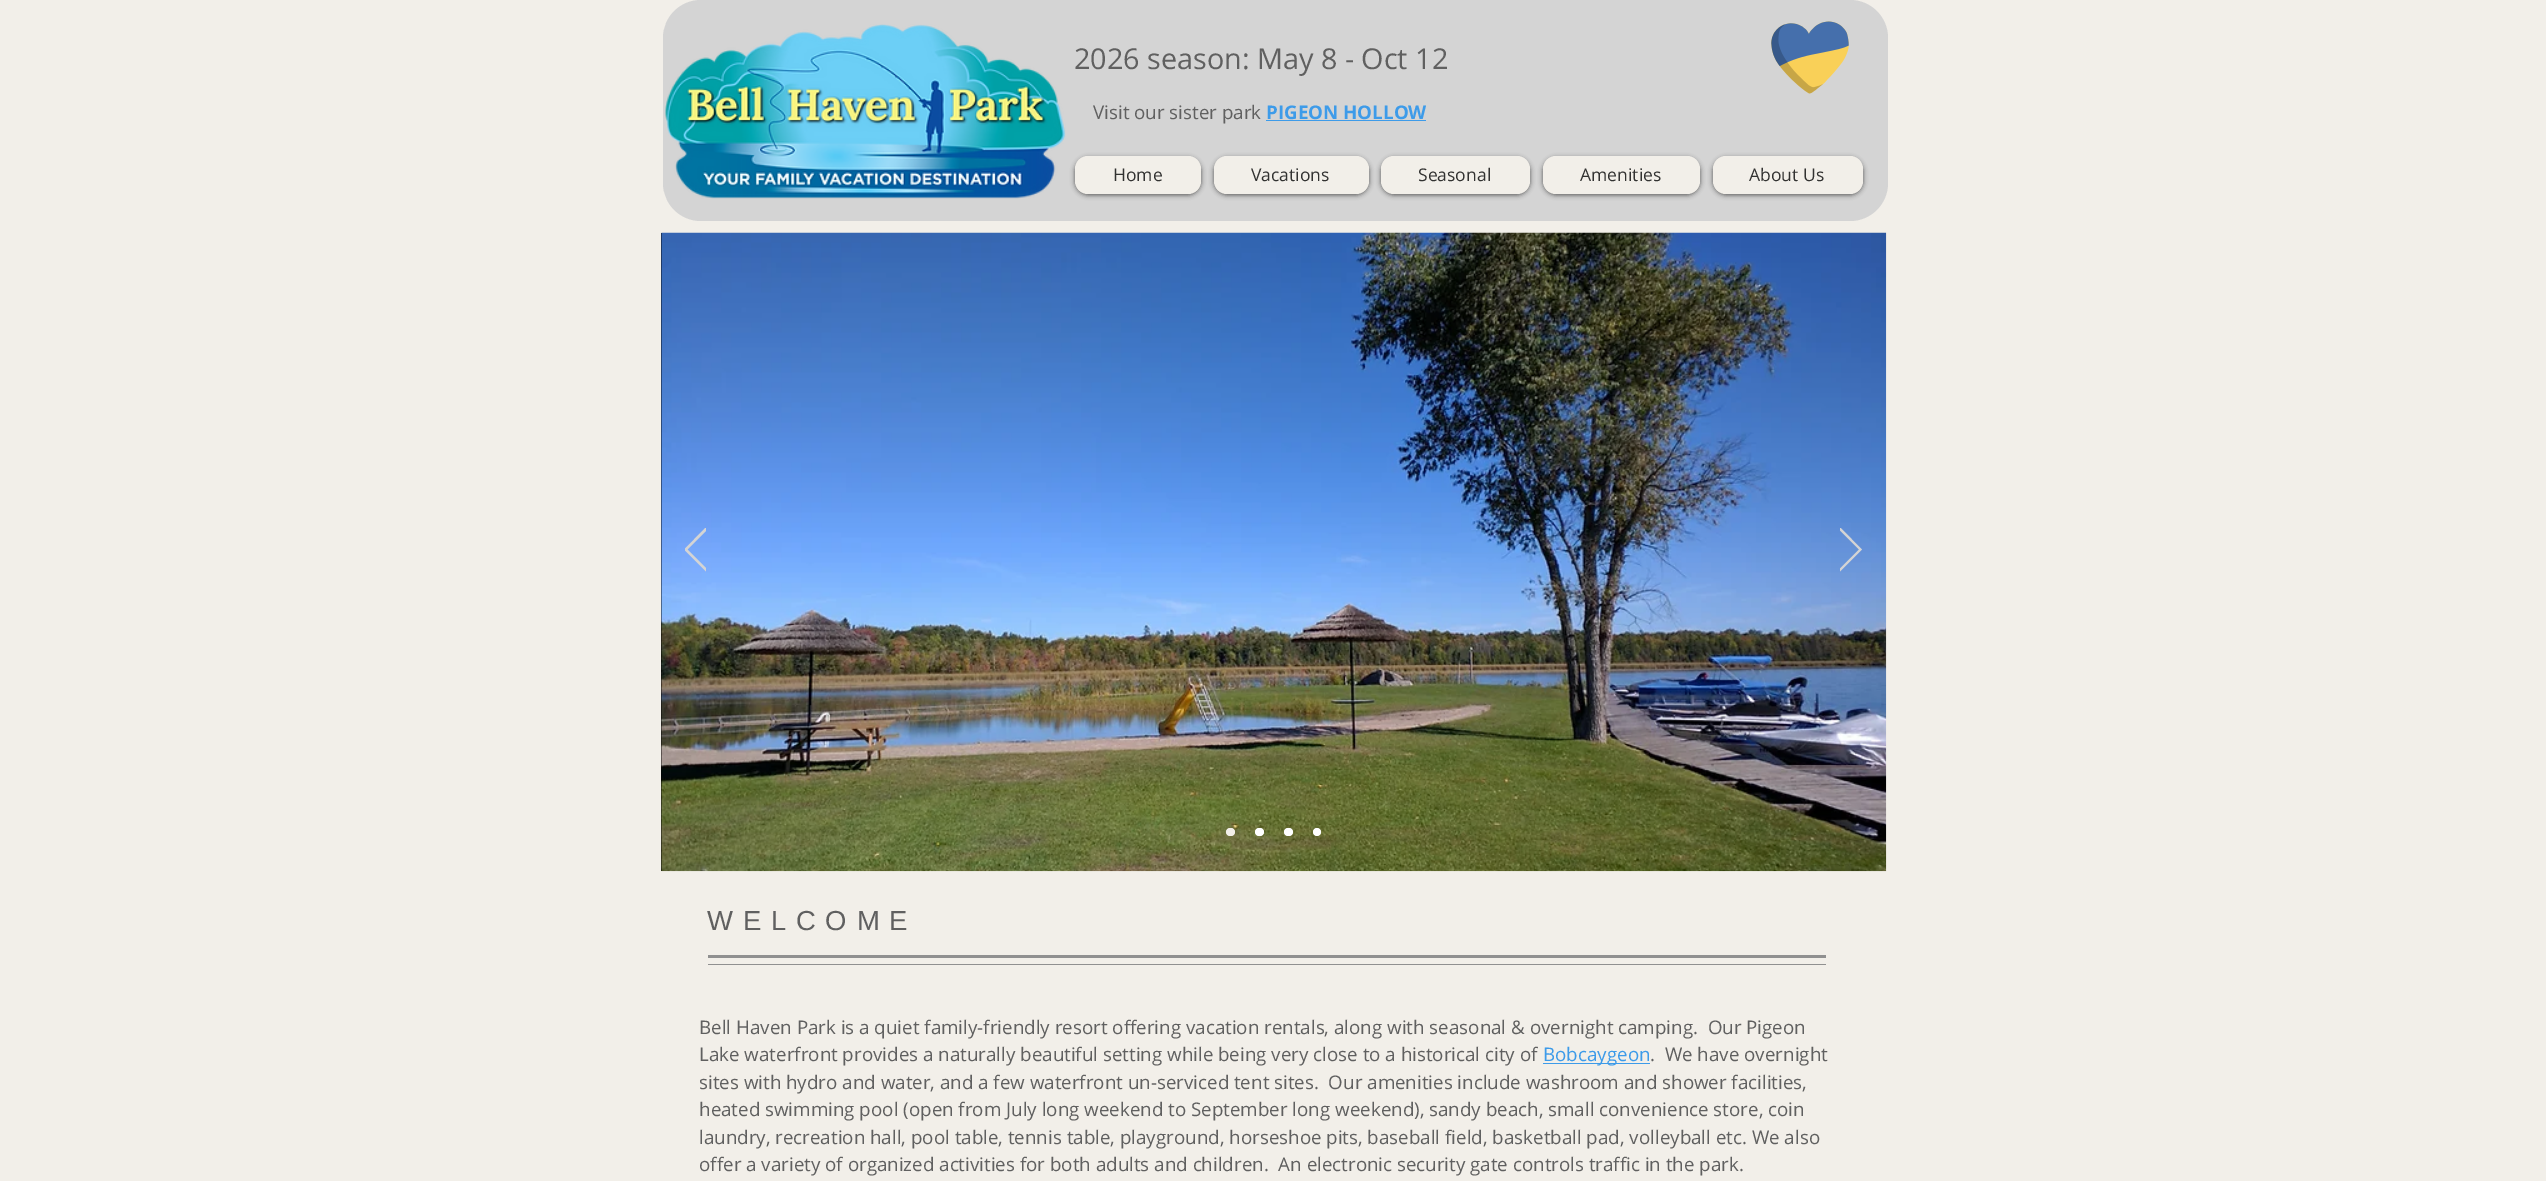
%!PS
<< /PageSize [2546 1181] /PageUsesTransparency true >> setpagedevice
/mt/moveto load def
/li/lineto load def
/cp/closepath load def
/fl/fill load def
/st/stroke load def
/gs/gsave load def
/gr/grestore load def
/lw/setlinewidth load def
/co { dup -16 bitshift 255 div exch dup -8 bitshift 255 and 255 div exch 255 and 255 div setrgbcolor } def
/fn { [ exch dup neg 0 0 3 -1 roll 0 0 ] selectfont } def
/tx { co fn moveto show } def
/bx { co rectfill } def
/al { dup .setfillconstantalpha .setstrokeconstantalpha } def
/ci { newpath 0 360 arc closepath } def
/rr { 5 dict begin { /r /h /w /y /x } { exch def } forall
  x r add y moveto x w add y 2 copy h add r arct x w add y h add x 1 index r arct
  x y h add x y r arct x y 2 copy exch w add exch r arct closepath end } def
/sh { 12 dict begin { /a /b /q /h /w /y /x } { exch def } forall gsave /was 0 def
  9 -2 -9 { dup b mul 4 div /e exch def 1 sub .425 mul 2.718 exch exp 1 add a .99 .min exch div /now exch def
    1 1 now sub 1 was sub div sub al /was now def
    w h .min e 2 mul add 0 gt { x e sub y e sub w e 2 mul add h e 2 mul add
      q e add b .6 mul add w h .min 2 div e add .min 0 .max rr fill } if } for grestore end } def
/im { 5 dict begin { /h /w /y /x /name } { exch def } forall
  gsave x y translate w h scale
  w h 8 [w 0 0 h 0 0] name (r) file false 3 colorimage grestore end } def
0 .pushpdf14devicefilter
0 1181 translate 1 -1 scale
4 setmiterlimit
0 0 2546 1181 16#F2EFE9 bx
16#D4D4D4 co
663 0 1225 221 38 rr fl
(media/1.raw) 664 24 402 175 im
(media/2.raw) 1771 21 78 73 im
1266 120 160 1 16#3D9BE9 bx
16#000000 co
1075 158 126 37 13 2.5 .6 sh
16#F2EFE9 co
1075 156 126 38 13 rr fl
16#000000 co
1214 158 155 37 13 2.5 .6 sh
16#F2EFE9 co
1214 156 155 38 13 rr fl
16#000000 co
1381 158 149 37 13 2.5 .6 sh
16#F2EFE9 co
1381 156 149 38 13 rr fl
16#000000 co
1543 158 157 37 13 2.5 .6 sh
16#F2EFE9 co
1543 156 157 38 13 rr fl
16#000000 co
1713 158 150 37 13 2.5 .6 sh
16#F2EFE9 co
1713 156 150 38 13 rr fl
661 233 1 638 16#000000 bx
(media/3.raw) 661 232 1226 640 im
gs
685 528 21 45 rectclip
16#D4D4D4 co
1.1 lw
706.5 571 mt 685 549.5 li 706.5 527.5 li 707.5 528.5 li 686.5 549.5 li 707.5 570.5 li cp st
gr
gs
1840 528 23 45 rectclip
16#D4D4D4 co
1.1 lw
1839.5 571 mt 1861 549.5 li 1839.5 527.5 li 1839 528.5 li 1860 549.5 li 1839 570.5 li cp st
gr
16#F2EFE9 co
1226 828 9 8 4 rr fl
16#FFFFFF co
1255 828 9 8 4 rr fl
1284 828 9 8 4 rr fl
1317 832 4 ci fl
708 955 1118 3 16#909090 bx
708 964 1118 1 16#909090 bx
1543 1063 107 1 16#3D9BE9 bx
(2026 season: May 8 - Oct 12) 1074 69 /OpenSans-Regular 28.75 16#606060 tx
(Visit our sister park) 1093 119 /OpenSans-Regular 18.75 16#606060 tx
(PIGEON HOLLOW) 1266 119 /OpenSans-Bold 18.75 16#3D9BE9 tx
(Home) 1113 181 /OpenSans-Regular 17.5 16#323231 tx
(Vacations) 1251 181 /OpenSans-Regular 17.5 16#323231 tx
(Seasonal) 1418 181 /OpenSans-Regular 17.5 16#323231 tx
(Amenities) 1580 181 /OpenSans-Regular 17.5 16#323231 tx
(About Us) 1749 181 /OpenSans-Regular 17.5 16#323231 tx
/LiberationSans-Regular 27.5 fn
16#606060 co
707 930 mt 9.75 0 (WELCOME) ashow
(Bell Haven Park is a quiet family-friendly resort offering vacation rentals, along with seasonal & overnight camping.  Our Pigeon) 699 1034 /OpenSans-Regular 18.75 16#606060 tx
(Lake waterfront provides a naturally beautiful setting while being very close to a historical city of) 699 1061 /OpenSans-Regular 18.75 16#606060 tx
(Bobcaygeon) 1543 1061 /OpenSans-Regular 18.75 16#3D9BE9 tx
(.  We have overnight) 1650 1061 /OpenSans-Regular 18.75 16#606060 tx
(sites with hydro and water, and a few waterfront un-serviced tent sites.  Our amenities include washroom and shower facilities,) 699 1089 /OpenSans-Regular 18.75 16#606060 tx
(heated swimming pool \(open from July long weekend to September long weekend\), sandy beach, small convenience store, coin) 699 1116 /OpenSans-Regular 18.75 16#606060 tx
(laundry, recreation hall, pool table, tennis table, playground, horseshoe pits, baseball field, basketball pad, volleyball etc. We also) 699 1144 /OpenSans-Regular 18.75 16#606060 tx
(offer a variety of organized activities for both adults and children.  An electronic security gate controls traffic in the park.) 699 1171 /OpenSans-Regular 18.75 16#606060 tx
.poppdf14devicefilter showpage
